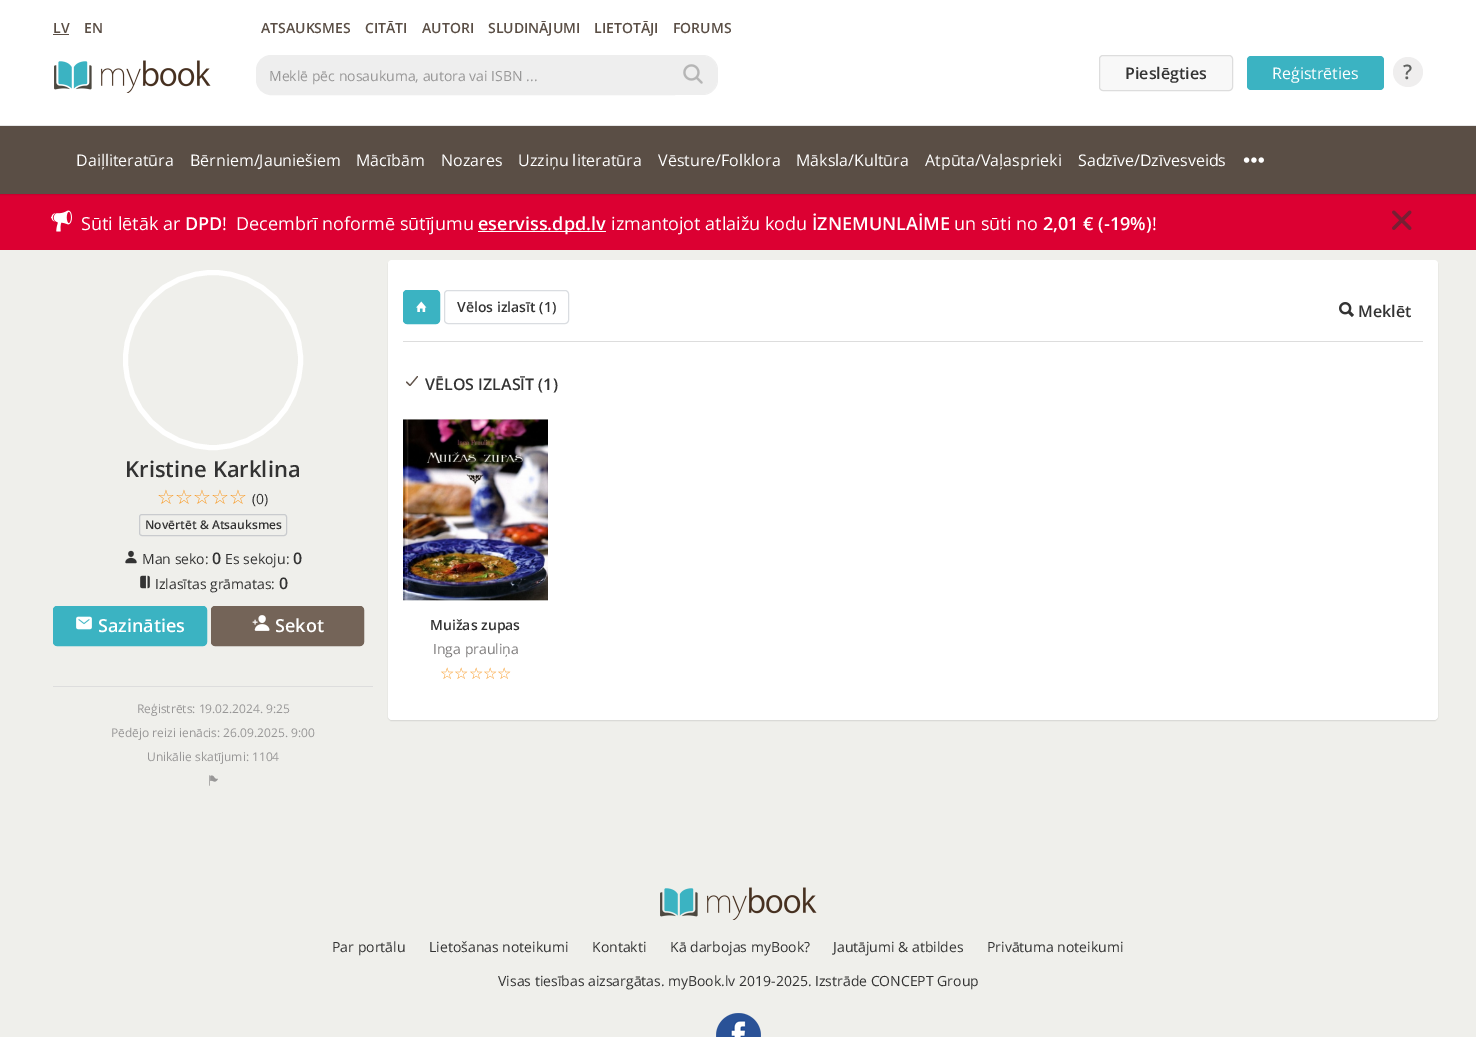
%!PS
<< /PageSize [1476 1037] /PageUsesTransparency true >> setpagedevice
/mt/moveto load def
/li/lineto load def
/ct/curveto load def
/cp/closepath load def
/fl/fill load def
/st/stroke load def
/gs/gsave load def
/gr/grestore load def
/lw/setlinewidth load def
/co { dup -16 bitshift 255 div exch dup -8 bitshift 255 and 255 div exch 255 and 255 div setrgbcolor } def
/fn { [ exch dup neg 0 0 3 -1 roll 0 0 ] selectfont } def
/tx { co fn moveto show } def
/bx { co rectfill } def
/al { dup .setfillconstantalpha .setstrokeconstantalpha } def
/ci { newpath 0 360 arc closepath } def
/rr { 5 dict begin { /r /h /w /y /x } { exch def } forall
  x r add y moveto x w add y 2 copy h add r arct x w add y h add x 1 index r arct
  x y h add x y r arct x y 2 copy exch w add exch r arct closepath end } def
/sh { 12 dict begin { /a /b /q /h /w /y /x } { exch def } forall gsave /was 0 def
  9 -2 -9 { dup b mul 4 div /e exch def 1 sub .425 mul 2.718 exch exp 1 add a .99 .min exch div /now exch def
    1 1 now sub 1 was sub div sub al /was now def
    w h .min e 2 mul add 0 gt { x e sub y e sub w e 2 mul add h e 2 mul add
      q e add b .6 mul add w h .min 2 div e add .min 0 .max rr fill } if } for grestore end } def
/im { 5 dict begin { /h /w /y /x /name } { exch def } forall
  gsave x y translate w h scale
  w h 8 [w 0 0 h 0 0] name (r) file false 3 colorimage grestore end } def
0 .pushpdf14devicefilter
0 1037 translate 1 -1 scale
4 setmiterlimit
0 0 1476 1037 16#EFEFEB bx
0 0 1476 125 16#FFFFFF bx
53 34 16 1 16#5A4E45 bx
(media/1.raw) 54 60 157 33 im
16#EEEEEE co
271 55.5 mt 674.5 55.5 li 674.5 94.5 li 271 94.5 li 263 94.5 256.5 88 256.5 80 ct 256.5 70 li 256.5 62 263 55.5 271 55.5 ct cp gs fl gr
st
669 56 mt 703 56 li 710.5 56 717 62.5 717 70 ct 717 80 li 717 87.5 710.5 94 703 94 ct 669 94 li cp fl
669 55 mt 703 55 li 711 55 718 62 718 70 ct 718 80 li 718 88 711 95 703 95 ct 669 95 li cp 669 56 mt 703 56 li 711 56 717 62 717 70 ct 717 80 li 717 88 711 94 703 94 ct 669 94 li cp eofill
(media/2.raw) 683 64 20 20 im
16#F8F8F8 co
1099.5 55.5 133 35 3.5 rr gs fl gr
16#DDDDDD co
st
16#3BB3C2 co
1247 56 137 34 4 rr fl
16#EFEEEE co
1408 72 15 ci fl
0 194 1476 56 16#DC0032 bx
16#000000 co
0 126 1476 69 0 .5 .1 sh
0 126 1476 68 16#5A4E45 bx
0 125 1476 1 16#E7E7E7 bx
(media/3.raw) 1243 157 21 6 im
(media/4.raw) 51 210 21 22 im
478 231 128 1 16#FFFFFF bx
(media/5.raw) 1392 210 20 20 im
5 lw
213 360 87.5 ci st
16#C9CBCE co
1 lw
139.5 514.5 147 21 2.5 rr st
(media/6.raw) 125 550 12 14 im
(media/7.raw) 140 575 10 14 im
16#3BB3C2 co
53.5 606.5 153 39 3.5 rr gs fl gr
st
(media/8.raw) 76 616 16 14 im
16#746458 co
211.5 606.5 152 39 3.5 rr gs fl gr
st
(media/9.raw) 252 615 18 16 im
53 686 320 1 16#DDDDDD bx
(media/10.raw) 209 775 9 11 im
16#000000 co
388 261 1050 460 4 .5 .1 sh
16#FFFFFF co
388 260 1050 460 4 rr fl
16#3BB3C2 co
403.5 290.5 36 33 3.5 rr gs fl gr
st
(media/11.raw) 416 301 11 11 im
16#DADDE1 co
444.5 290.5 124 33 3.5 rr st
(media/12.raw) 1339 302 15 15 im
403 341 1020 1 16#DDDDDD bx
16#61544B co
1.1 lw
1 setlinecap
1 setlinejoin
417.5 376.5 mt 410 385.5 li 406.5 382 li st
(media/13.raw) 403 418 145 183 im
(media/14.raw) 660 887 157 33 im
(media/15.raw) 716 1013 45 24 im
(LV) 53 33 /OpenSans-SemiBold 14 16#5A4E45 tx
(EN) 84 33 /OpenSans-SemiBold 14 16#5A4E45 tx
(ATSAUKSMES) 261 33 /OpenSans-SemiBold 14 16#5A4E45 tx
(CITĀTI) 365 33 /OpenSans-SemiBold 14 16#5A4E45 tx
(AUTORI) 422 33 /OpenSans-SemiBold 14 16#5A4E45 tx
(SLUDINĀJUMI) 488 33 /OpenSans-SemiBold 14 16#5A4E45 tx
(LIETOTĀJI) 594 33 /OpenSans-SemiBold 14 16#5A4E45 tx
(FORUMS) 673 33 /OpenSans-SemiBold 14 16#5A4E45 tx
(Meklē pēc nosaukuma, autora vai ISBN ...) 269 81 /OpenSans-Regular 14 16#989797 tx
(Pieslēgties) 1125 79 /OpenSans-SemiBold 16 16#333333 tx
(Reģistrēties) 1272 79 /OpenSans-Regular 16 16#FFFFFF tx
(?) 1403 79 /OpenSans-SemiBold 20 16#616361 tx
(Daiļliteratūra) 76 166 /OpenSans-Regular 16 16#FFFFFF tx
(Bērniem/Jauniešiem) 190 166 /OpenSans-Regular 16 16#FFFFFF tx
(Mācībām) 356 166 /OpenSans-Regular 16 16#FFFFFF tx
(Nozares) 441 166 /OpenSans-Regular 16 16#FFFFFF tx
(Uzziņu literatūra) 518 166 /OpenSans-Regular 16 16#FFFFFF tx
(Vēsture/Folklora) 658 166 /OpenSans-Regular 16 16#FFFFFF tx
(Māksla/Kultūra) 796 166 /OpenSans-Regular 16 16#FFFFFF tx
(Atpūta/Vaļasprieki) 925 166 /OpenSans-Regular 16 16#FFFFFF tx
(Sadzīve/Dzīvesveids) 1078 166 /OpenSans-Regular 16 16#FFFFFF tx
(Sūti lētāk ar) 81 230 /OpenSans-Regular 18 16#FFFFFF tx
(DPD) 185 230 /OpenSans-SemiBold 18 16#FFFFFF tx
(!  Decembrī noformē sūtījumu) 222 230 /OpenSans-Regular 18 16#FFFFFF tx
(eserviss.dpd.lv) 478 230 /OpenSans-SemiBold 18 16#FFFFFF tx
(izmantojot atlaižu kodu) 611 230 /OpenSans-Regular 18 16#FFFFFF tx
(İZNEMUNLAİME) 812 230 /OpenSans-SemiBold 18 16#FFFFFF tx
(un sūti no) 954 230 /OpenSans-Regular 18 16#FFFFFF tx
(2,01 € \(-19%\)) 1043 230 /OpenSans-SemiBold 18 16#FFFFFF tx
(!) 1152 230 /OpenSans-Regular 18 16#FFFFFF tx
(Kristine Karklina) 125 477 /OpenSans-SemiBold 22 16#333333 tx
(☆☆☆☆☆) 157 504 /DejaVuSans-Regular 20 16#F89D2C tx
(\(0\)) 252 504 /OpenSans-Regular 14 16#333333 tx
(Novērtēt & Atsauksmes) 145 529 /OpenSans-SemiBold 12 16#333333 tx
(Man seko:) 142 564 /OpenSans-Regular 14 16#333333 tx
(0) 212 564 /OpenSans-SemiBold 16 16#333333 tx
(Es sekoju:) 225 564 /OpenSans-Regular 14 16#333333 tx
(0) 293 564 /OpenSans-SemiBold 16 16#333333 tx
(Izlasītas grāmatas:) 155 589 /OpenSans-Regular 14 16#333333 tx
(0) 279 589 /OpenSans-SemiBold 16 16#333333 tx
(Sazināties) 98 632 /OpenSans-SemiBold 18 16#FFFFFF tx
(Sekot) 275 632 /OpenSans-SemiBold 18 16#FFFFFF tx
(Reģistrēts: 19.02.2024. 9:25) 137 713 /OpenSans-Regular 12 16#989797 tx
(Pēdējo reizi ienācis: 26.09.2025. 9:00) 111 737 /OpenSans-Regular 12 16#989797 tx
(Unikālie skatījumi: 1104) 147 761 /OpenSans-Regular 12 16#989797 tx
(Vēlos izlasīt \(1\)) 457 312 /OpenSans-SemiBold 14 16#333333 tx
(Meklēt) 1358 317 /OpenSans-SemiBold 16 16#333333 tx
(VĒLOS IZLASĪT \(1\)) 425 390 /OpenSans-SemiBold 16 16#333333 tx
(Muižas zupas) 430 630 /OpenSans-SemiBold 14 16#333333 tx
(Inga prauliņa) 433 654 /OpenSans-Regular 14 16#807E7E tx
(☆☆☆☆☆) 440 679 /DejaVuSans-Regular 16 16#F89D2C tx
(Par portālu) 332 952 /OpenSans-Regular 14 16#333333 tx
(Lietošanas noteikumi) 429 952 /OpenSans-Regular 14 16#333333 tx
(Kontakti) 592 952 /OpenSans-Regular 14 16#333333 tx
(Kā darbojas myBook?) 670 952 /OpenSans-Regular 14 16#333333 tx
(Jautājumi & atbildes) 833 952 /OpenSans-Regular 14 16#333333 tx
(Privātuma noteikumi) 987 952 /OpenSans-Regular 14 16#333333 tx
(Visas tiesības aizsargātas. myBook.lv 2019-2025. Izstrāde CONCEPT Group) 498 986 /OpenSans-Regular 14 16#333333 tx
.poppdf14devicefilter showpage
